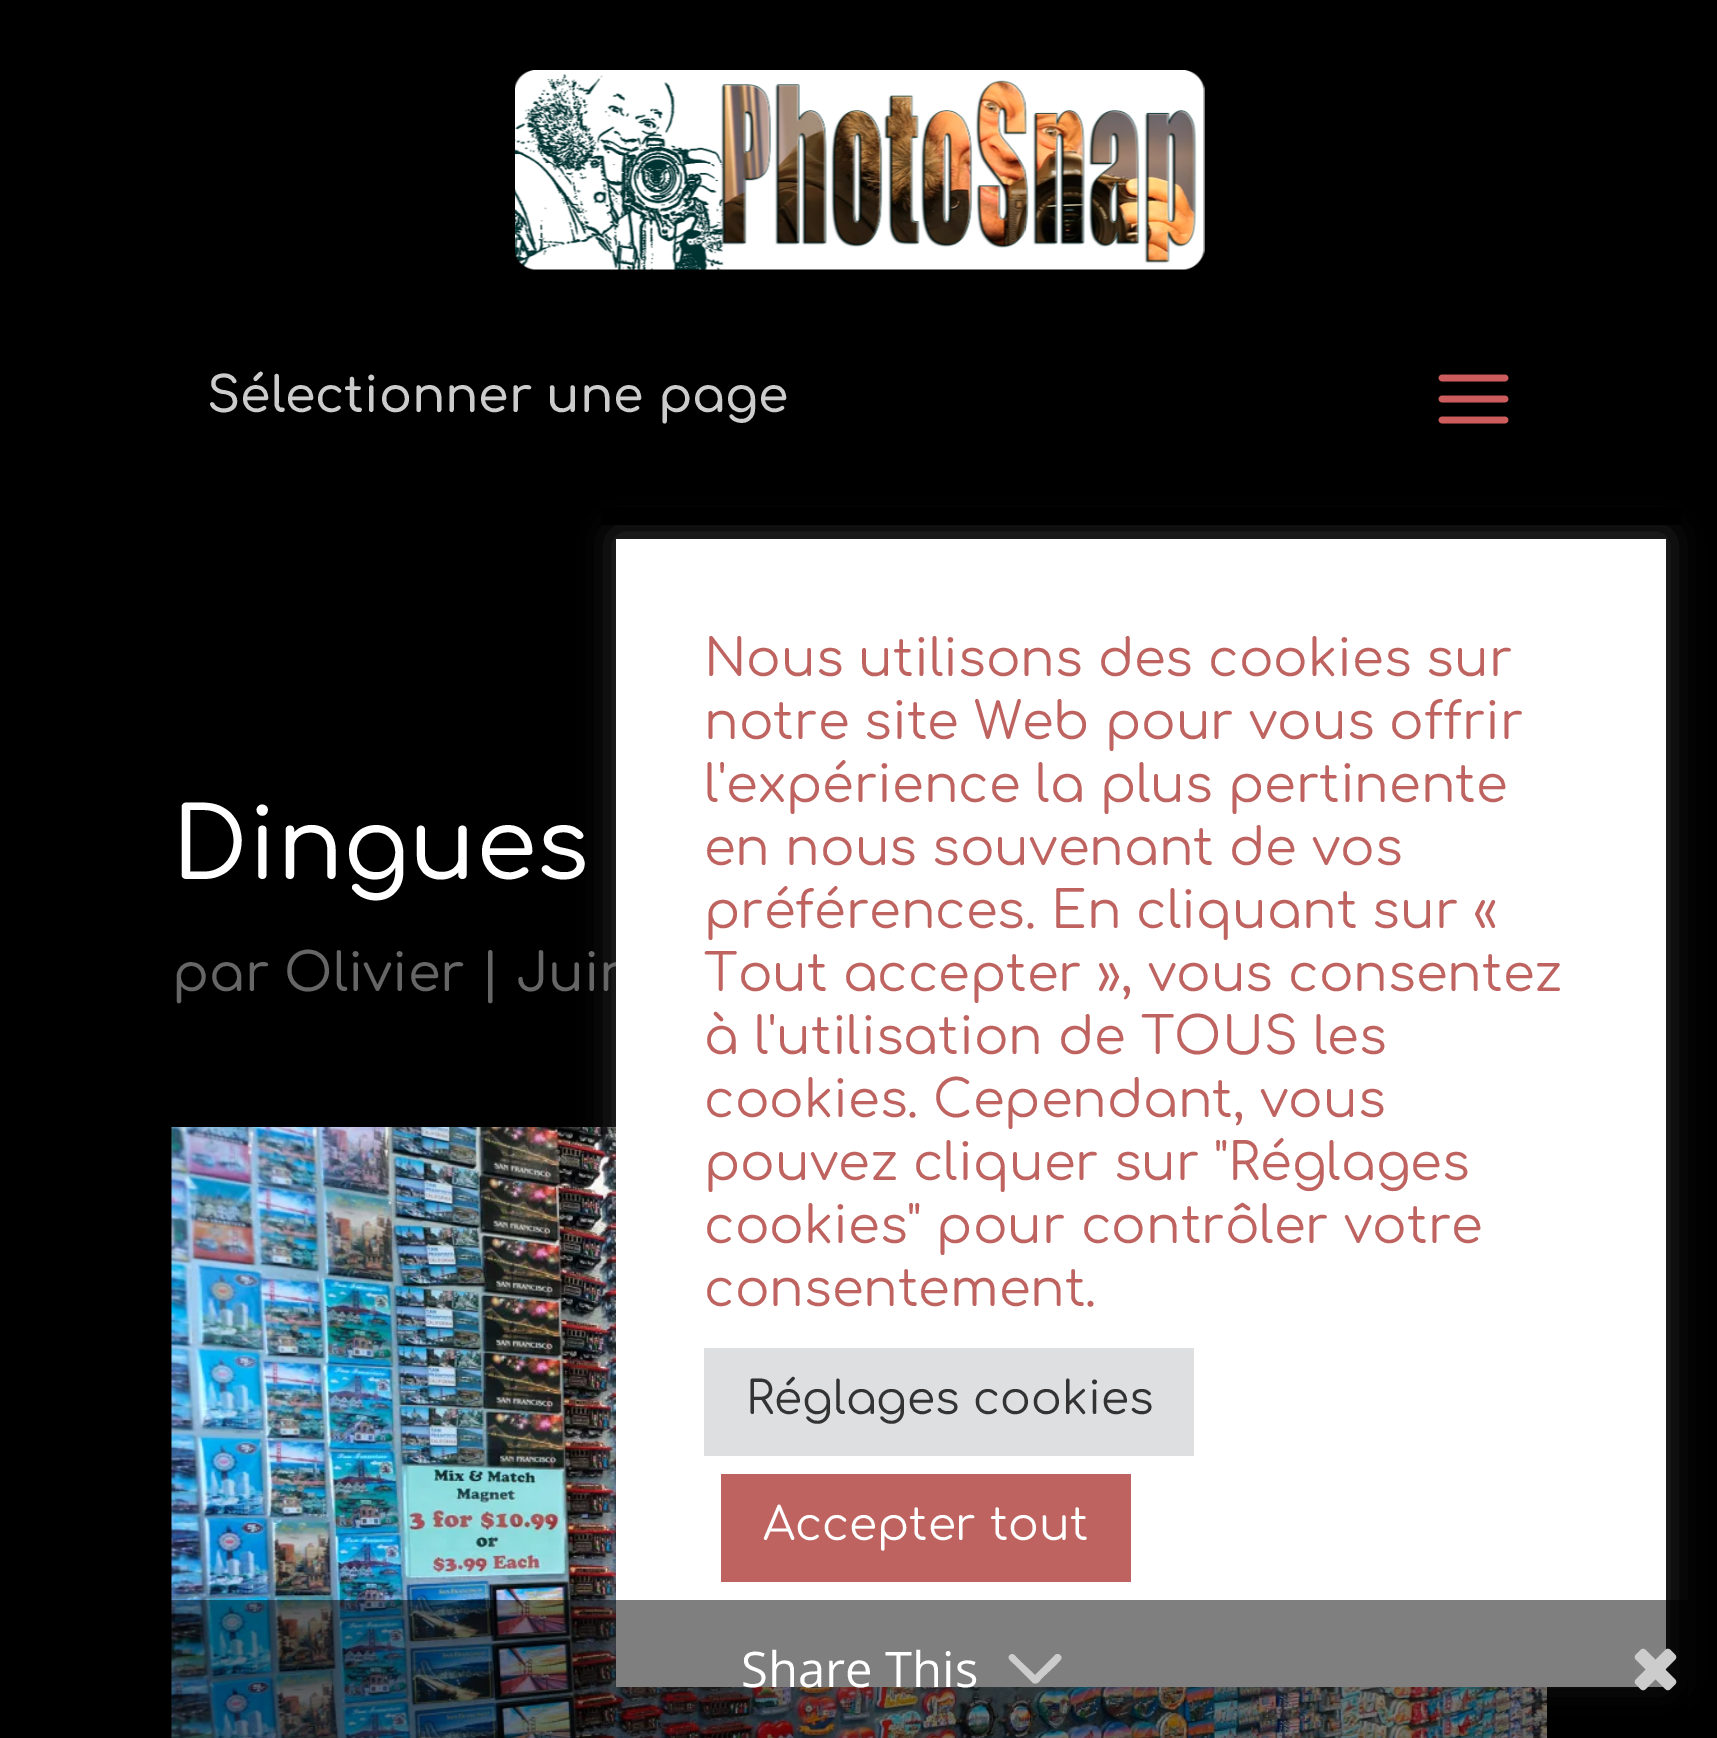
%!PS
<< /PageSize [1717 1738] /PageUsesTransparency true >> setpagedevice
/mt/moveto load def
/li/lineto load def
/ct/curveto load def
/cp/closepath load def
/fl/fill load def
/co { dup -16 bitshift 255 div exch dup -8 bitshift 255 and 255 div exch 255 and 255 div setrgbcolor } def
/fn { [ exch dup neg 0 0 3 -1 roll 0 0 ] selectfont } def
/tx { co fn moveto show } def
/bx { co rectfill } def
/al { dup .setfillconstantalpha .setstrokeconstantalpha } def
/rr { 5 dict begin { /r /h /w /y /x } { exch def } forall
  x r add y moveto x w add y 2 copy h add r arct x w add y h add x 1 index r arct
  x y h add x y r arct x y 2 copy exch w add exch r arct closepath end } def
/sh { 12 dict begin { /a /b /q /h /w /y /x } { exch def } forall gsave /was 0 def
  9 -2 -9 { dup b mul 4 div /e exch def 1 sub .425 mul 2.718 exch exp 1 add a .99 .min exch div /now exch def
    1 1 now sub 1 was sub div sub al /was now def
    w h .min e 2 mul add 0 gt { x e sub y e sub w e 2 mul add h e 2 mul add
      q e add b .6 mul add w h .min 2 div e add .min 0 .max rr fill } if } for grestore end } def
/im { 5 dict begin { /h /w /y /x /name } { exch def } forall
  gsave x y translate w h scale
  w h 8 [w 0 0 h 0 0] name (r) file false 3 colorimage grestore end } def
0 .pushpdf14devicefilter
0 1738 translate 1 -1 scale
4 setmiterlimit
0 0 1717 1738 16#000000 bx
(media/3.raw) 171 1127 1376 611 im
16#ACABAB co
616 536 1050 1148 0 17.5 .3 sh
601 507 1080 18 16#000000 bx
(media/1.raw) 515 70 690 200 im
(media/2.raw) 1438 374 71 50 im
(Sélectionner une page) 207 412 /Comfortaa-SemiBold 49 16#CCCCCC tx
(Dingues) 172 879 /Comfortaa-Medium 98 16#FFFFFF tx
(par Olivier | Juin) 172 991 /Comfortaa-Medium 52.5 16#666666 tx
616 539 1050 1148 16#FFFFFF bx
(Nous utilisons des cookies sur) 704 676 /Comfortaa-Regular 51.3 16#BE635F tx
(notre site Web pour vous offrir) 704 739 /Comfortaa-Regular 51.3 16#BE635F tx
(l'expérience la plus pertinente) 704 802 /Comfortaa-Regular 51.3 16#BE635F tx
(en nous souvenant de vos) 704 865 /Comfortaa-Regular 51.3 16#BE635F tx
(préférences. En cliquant sur «) 704 928 /Comfortaa-Regular 51.3 16#BE635F tx
(Tout accepter », vous consentez) 704 991 /Comfortaa-Regular 51.3 16#BE635F tx
(à l'utilisation de TOUS les) 704 1054 /Comfortaa-Regular 51.3 16#BE635F tx
(cookies. Cependant, vous) 704 1117 /Comfortaa-Regular 51.3 16#BE635F tx
(pouvez cliquer sur "Réglages) 704 1180 /Comfortaa-Regular 51.3 16#BE635F tx
(cookies" pour contrôler votre) 704 1243 /Comfortaa-Regular 51.3 16#BE635F tx
(consentement.) 704 1306 /Comfortaa-Regular 51.3 16#BE635F tx
704 1348 490 108 16#DEDFE0 bx
(Réglages cookies) 746 1414 /Comfortaa-Regular 45.5 16#333333 tx
721 1474 410 108 16#BE635F bx
(Accepter tout) 763 1540 /Comfortaa-Regular 45.5 16#FFFFFF tx
0.5 al
171 1600 1517 138 16#000000 bx
1 al
(Share This) 741 1687 /OpenSans-Regular 49 16#FFFFFF tx
16#CCCCCC co
1055 1655 mt 1035 1675 li 1018 1659 li 1016 1657 1013 1652 1010 1655 ct 1006 1658 1012 1662 1014 1664 ct 1033 1683 li 1037 1685 1040 1681 1041 1679 ct 1057 1664 li 1058 1662 1063 1659 1061 1656 ct 1059 1654 li 1057 1654 1056 1654 1055 1655 ct cp fl
(media/4.raw) 1634 1648 43 43 im
.poppdf14devicefilter showpage
